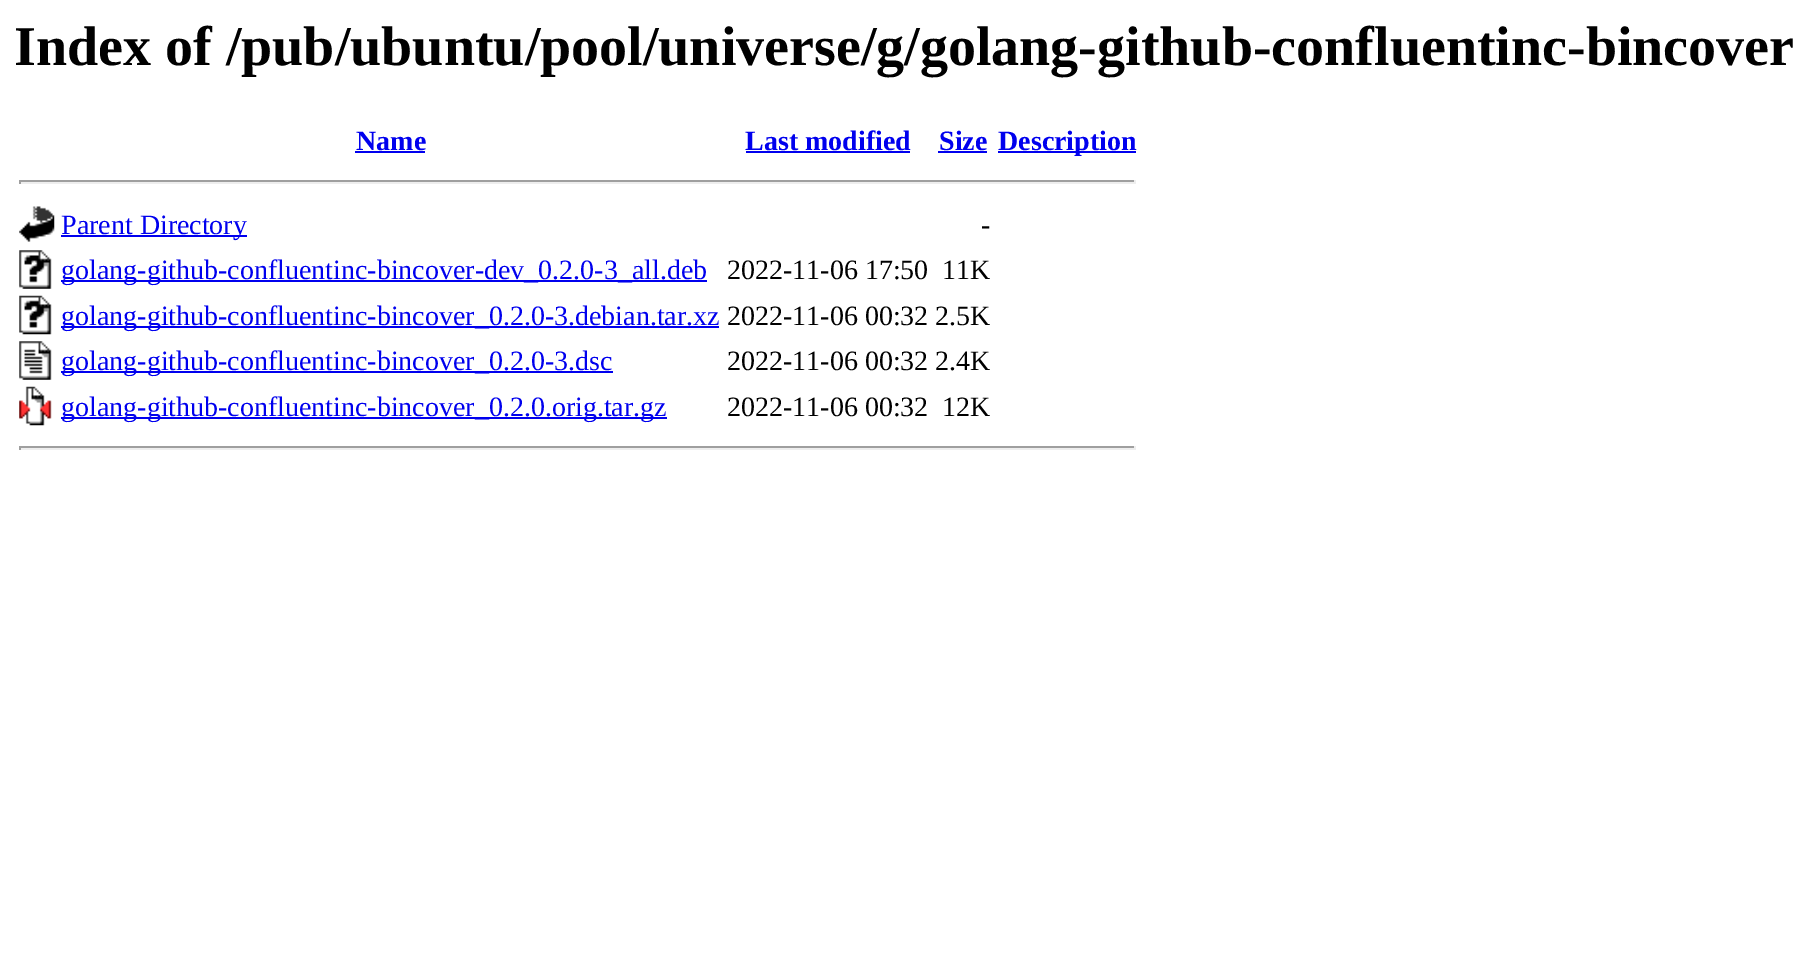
%!PS
<< /PageSize [1808 956] >> setpagedevice
/co { dup -16 bitshift 255 div exch dup -8 bitshift 255 and 255 div exch 255 and 255 div setrgbcolor } def
/fn { [ exch dup neg 0 0 3 -1 roll 0 0 ] selectfont } def
/tx { co fn moveto show } def
/bx { co rectfill } def
/im { 5 dict begin { /h /w /y /x /name } { exch def } forall
  gsave x y translate w h scale
  w h 8 [w 0 0 h 0 0] name (r) file false 3 colorimage grestore end } def
0 956 translate 1 -1 scale
4 setmiterlimit
0 0 1808 956 16#FFFFFF bx
355 151 70 2 16#0000EE bx
746 151 164 2 16#0000EE bx
938 151 49 2 16#0000EE bx
998 151 138 2 16#0000EE bx
19 180 1117 2 16#9F9F9F bx
1134 180 2 4 16#EEEEEE bx
19 182 1117 2 16#EEEEEE bx
19 180 2 4 16#9F9F9F bx
(media/1.raw) 19 206 36 36 im
61 235 186 2 16#0000EE bx
(media/2.raw) 19 250 33 39 im
61 280 646 2 16#0000EE bx
(media/3.raw) 19 295 33 40 im
61 326 658 2 16#0000EE bx
(media/4.raw) 19 341 33 39 im
61 371 552 2 16#0000EE bx
(media/5.raw) 19 386 33 40 im
61 417 606 2 16#0000EE bx
19 446 1117 2 16#9F9F9F bx
1134 446 2 4 16#EEEEEE bx
19 448 1117 2 16#EEEEEE bx
19 446 2 4 16#9F9F9F bx
(Index of /pub/ubuntu/pool/universe/g/golang-github-confluentinc-bincover) 14 65 /LiberationSerif-Bold 56 16#000000 tx
(Name) 356 150 /LiberationSerif-Bold 28 16#0000EE tx
(Last modified) 745 150 /LiberationSerif-Bold 28 16#0000EE tx
(Size) 939 150 /LiberationSerif-Bold 28 16#0000EE tx
(Description) 998 150 /LiberationSerif-Bold 28 16#0000EE tx
(Parent Directory) 61 234 /LiberationSerif-Regular 28 16#0000EE tx
(-) 981 234 /LiberationSerif-Regular 28 16#000000 tx
(golang-github-confluentinc-bincover-dev_0.2.0-3_all.deb) 61 279 /LiberationSerif-Regular 28 16#0000EE tx
(2022-11-06 17:50) 727 279 /LiberationSerif-Regular 28 16#000000 tx
(11K) 942 279 /LiberationSerif-Regular 28 16#000000 tx
(golang-github-confluentinc-bincover_0.2.0-3.debian.tar.xz) 61 325 /LiberationSerif-Regular 28 16#0000EE tx
(2022-11-06 00:32 2.5K) 727 325 /LiberationSerif-Regular 28 16#000000 tx
(golang-github-confluentinc-bincover_0.2.0-3.dsc) 61 370 /LiberationSerif-Regular 28 16#0000EE tx
(2022-11-06 00:32 2.4K) 727 370 /LiberationSerif-Regular 28 16#000000 tx
(golang-github-confluentinc-bincover_0.2.0.orig.tar.gz) 61 416 /LiberationSerif-Regular 28 16#0000EE tx
(2022-11-06 00:32) 727 416 /LiberationSerif-Regular 28 16#000000 tx
(12K) 942 416 /LiberationSerif-Regular 28 16#000000 tx
showpage
